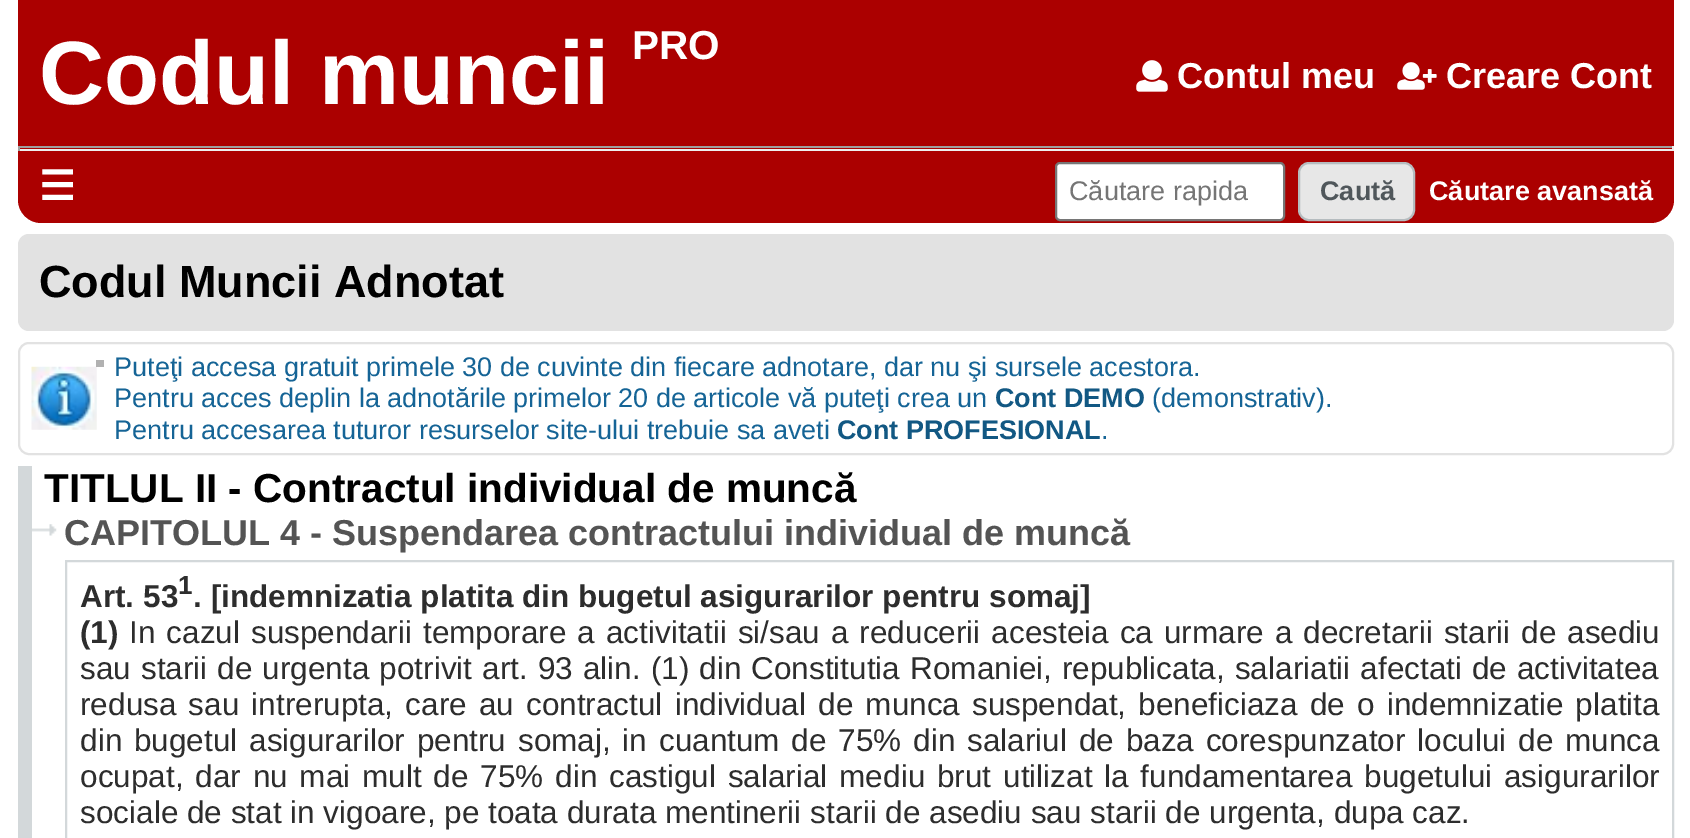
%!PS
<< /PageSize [1690 838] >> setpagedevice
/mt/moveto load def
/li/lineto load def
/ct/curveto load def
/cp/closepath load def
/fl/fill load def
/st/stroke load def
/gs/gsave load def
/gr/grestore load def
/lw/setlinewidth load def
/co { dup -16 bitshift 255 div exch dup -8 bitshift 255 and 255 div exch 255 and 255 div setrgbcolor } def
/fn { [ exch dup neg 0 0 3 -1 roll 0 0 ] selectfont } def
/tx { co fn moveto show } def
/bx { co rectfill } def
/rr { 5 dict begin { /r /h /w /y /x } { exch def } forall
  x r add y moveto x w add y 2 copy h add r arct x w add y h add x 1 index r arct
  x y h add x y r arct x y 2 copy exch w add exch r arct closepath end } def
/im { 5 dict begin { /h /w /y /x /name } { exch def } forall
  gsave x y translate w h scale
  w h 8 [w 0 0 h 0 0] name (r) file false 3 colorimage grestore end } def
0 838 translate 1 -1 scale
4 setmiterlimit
0 0 1690 838 16#FFFFFF bx
16#AB0000 co
18 0 mt 1674 0 li 1674 200 li 1674 212.5 1663.5 223 1651 223 ct 41 223 li 28.5 223 18 212.5 18 200 ct cp fl
(media/1.raw) 1136 60 32 32 im
(media/2.raw) 1397 62 40 28 im
18 146 1656 2 16#9F9F9F bx
1672 146 2 5 16#EEEEEE bx
18 149 1656 2 16#EEEEEE bx
18 146 2 5 16#9F9F9F bx
16#FFFFFF co
1056 163 228 57 4 rr gs fl gr
16#767676 co
2 lw
st
16#E7E7E7 co
1299 163 115 57 10 rr gs fl gr
16#B5BCBF co
st
16#E2E2E2 co
18 234 1656 97 11 rr fl
19 343 1654 111 10 rr st
(media/3.raw) 31 366 66 64 im
96 360 8 7 16#B1B1B1 bx
18 466 14 372 16#D3D8DA bx
(media/4.raw) 32 524 25 12 im
66 561 1607 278 rectstroke
(Codul muncii) 39 104 /LiberationSans-Bold 90 16#FFFFFF tx
(PRO) 632 59 /LiberationSans-Bold 40.5 16#FFFFFF tx
(Contul meu) 1177 88 /LiberationSans-Bold 36 16#FFFFFF tx
(Creare Cont) 1446 88 /LiberationSans-Bold 36 16#FFFFFF tx
(☰) 39 200 /DejaVuSans-Bold 40.5 16#FFFFFF tx
(Căutare rapida) 1069 200 /LiberationSans-Regular 27 16#757575 tx
(Caută) 1320 200 /LiberationSans-Bold 27 16#50575B tx
(Căutare avansată) 1429 200 /LiberationSans-Bold 27 16#FFFFFF tx
(Codul Muncii Adnotat) 39 297 /LiberationSans-Bold 45 16#000000 tx
(Puteţi accesa gratuit primele 30 de cuvinte din fiecare adnotare, dar nu şi sursele acestora.) 114 376 /LiberationSans-Regular 27 16#156496 tx
(Pentru acces deplin la adnotările primelor 20 de articole vă puteţi crea un) 114 407 /LiberationSans-Regular 27 16#156496 tx
(Cont DEMO) 995 407 /LiberationSans-Bold 27 16#125883 tx
(\(demonstrativ\).) 1152 407 /LiberationSans-Regular 27 16#156496 tx
(Pentru accesarea tuturor resurselor site-ului trebuie sa aveti) 114 439 /LiberationSans-Regular 27 16#156496 tx
(Cont PROFESIONAL) 837 439 /LiberationSans-Bold 27 16#125883 tx
(.) 1101 439 /LiberationSans-Regular 27 16#156496 tx
(TITLUL II - Contractul individual de muncă) 44 502 /LiberationSans-Bold 40.5 16#000000 tx
(CAPITOLUL 4 - Suspendarea contractului individual de muncă) 64 545 /LiberationSans-Bold 36 16#545454 tx
(Art. 53) 80 607 /LiberationSans-Bold 31.5 16#2D2D2D tx
(1) 178 594 /LiberationSans-Bold 26 16#2D2D2D tx
(. [indemnizatia platita din bugetul asigurarilor pentru somaj]) 193 607 /LiberationSans-Bold 31.5 16#2D2D2D tx
(\(1\)) 80 643 /LiberationSans-Bold 31.5 16#2D2D2D tx
/LiberationSans-Regular 31.5 fn
129 643 mt 2.25 0 32 (In cazul suspendarii temporare a activitatii si/sau a reducerii acesteia ca urmare a decretarii starii de asediu) widthshow
80 679 mt 1.3 0 32 (sau starii de urgenta potrivit art. 93 alin. \(1\) din Constitutia Romaniei, republicata, salariatii afectati de activitatea) widthshow
80 715 mt 3.4 0 32 (redusa sau intrerupta, care au contractul individual de munca suspendat, beneficiaza de o indemnizatie platita) widthshow
80 751 mt 3.1 0 32 (din bugetul asigurarilor pentru somaj, in cuantum de 75% din salariul de baza corespunzator locului de munca) widthshow
80 787 mt 3.1 0 32 (ocupat, dar nu mai mult de 75% din castigul salarial mediu brut utilizat la fundamentarea bugetului asigurarilor) widthshow
(sociale de stat in vigoare, pe toata durata mentinerii starii de asediu sau starii de urgenta, dupa caz.) 80 823 /LiberationSans-Regular 31.5 16#2D2D2D tx
showpage
